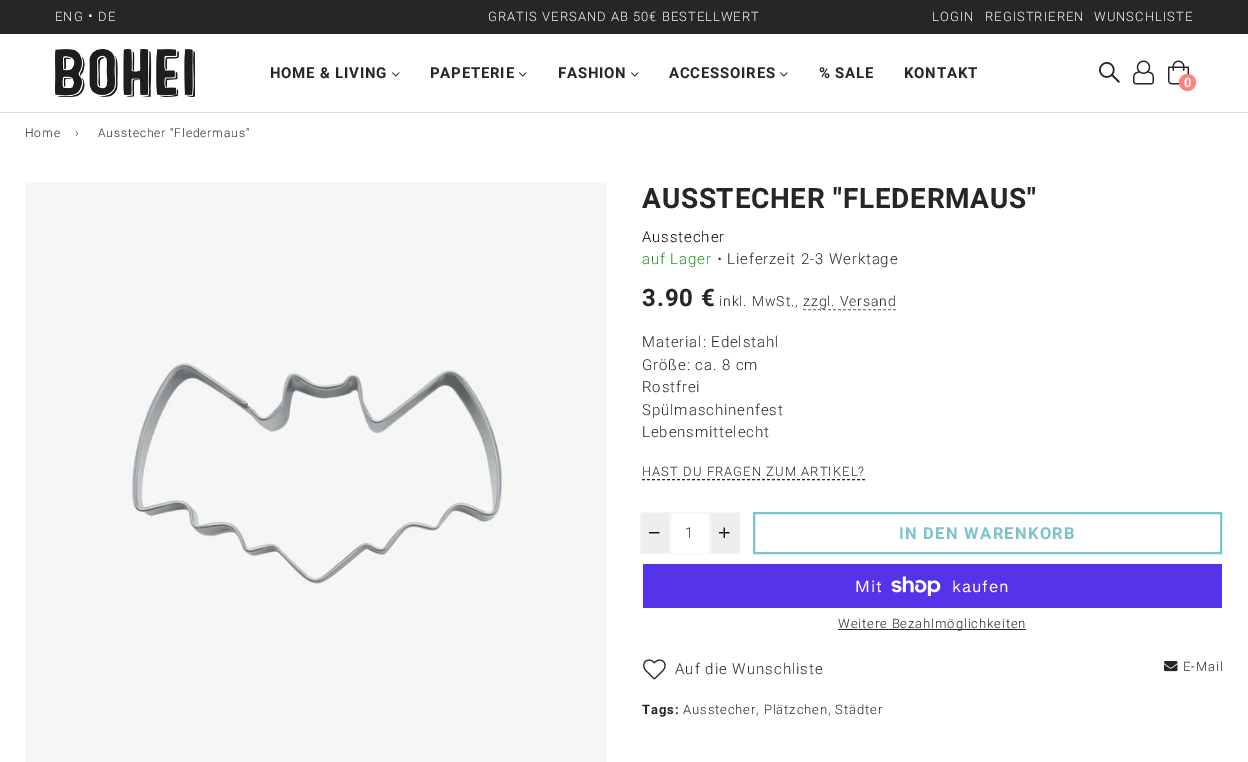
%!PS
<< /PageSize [1248 762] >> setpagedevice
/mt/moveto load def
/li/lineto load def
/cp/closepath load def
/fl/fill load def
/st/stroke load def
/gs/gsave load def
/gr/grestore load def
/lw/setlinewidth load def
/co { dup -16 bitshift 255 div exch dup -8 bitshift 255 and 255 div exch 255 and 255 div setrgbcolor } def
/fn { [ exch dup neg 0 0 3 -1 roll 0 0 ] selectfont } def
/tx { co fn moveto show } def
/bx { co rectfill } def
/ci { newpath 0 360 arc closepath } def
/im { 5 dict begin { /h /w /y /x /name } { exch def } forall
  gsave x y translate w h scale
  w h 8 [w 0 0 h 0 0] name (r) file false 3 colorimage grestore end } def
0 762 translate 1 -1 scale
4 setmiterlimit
0 0 1248 762 16#FFFFFF bx
0 0 1248 34 16#262626 bx
0 112 1248 1 16#DDDDDD bx
(media/1.raw) 55 49 140 48 im
(media/2.raw) 392 72 8 5 im
(media/2.raw) 519 72 8 5 im
(media/2.raw) 631 72 8 5 im
(media/2.raw) 780 72 8 5 im
(media/3.raw) 1099 62 21 21 im
(media/4.raw) 1133 60 21 25 im
(media/5.raw) 1168 60 21 25 im
16#FF8080 co
1187.5 82.5 8.5 ci fl
(media/6.raw) 25 182 582 580 im
16#7E7E7E co
[3 2] 0 setdash
803 309.5 mt 896 309.5 li st
16#262626 co
642 479.5 mt 865 479.5 li st
16#EEEEEE co
640.5 512.5 mt 669.5 512.5 li 669.5 553.5 li 640.5 553.5 li cp gs fl gr
16#F5F5F5 co
[] 0 setdash
st
(media/7.raw) 649 532 11 2 im
670.5 512.5 39 41 rectstroke
16#EEEEEE co
710.5 512.5 mt 739.5 512.5 li 739.5 553.5 li 710.5 553.5 li cp gs fl gr
16#F5F5F5 co
st
(media/8.raw) 719 527 11 11 im
16#7CC4C9 co
2 lw
754 513 467 40 rectstroke
643 564 579 44 16#5433EB bx
(media/9.raw) 891 576 50 20 im
838 629 188 1 16#262626 bx
(media/10.raw) 643 659 23 21 im
(media/11.raw) 1164 661 14 11 im
/Roboto-Light 13 fn
16#FFFFFF co
55 21 mt 1 0 (ENG) ashow
/Roboto-Light 15 fn
88 21 mt .9 0 (•) ashow
/Roboto-Light 13 fn
98 21 mt 1 0 (DE) ashow
488 21 mt 1 0 (GRATIS VERSAND AB 50€ BESTELLWERT) ashow
932 21 mt 1 0 (LOGIN) ashow
985 21 mt 1 0 (REGISTRIEREN) ashow
1094 21 mt 1 0 (WUNSCHLISTE) ashow
/Roboto-Bold 15 fn
16#262626 co
270 78 mt .75 0 (HOME & LIVING) ashow
430 78 mt .75 0 (PAPETERIE) ashow
558 78 mt .75 0 (FASHION) ashow
669 78 mt .75 0 (ACCESSOIRES) ashow
819 78 mt .75 0 (% SALE) ashow
904 78 mt .75 0 (KONTAKT) ashow
(0) 1184 87 /Roboto-Bold 13 16#FFFFFF tx
/Roboto-Light 12 fn
16#262626 co
25 137 mt .9 0 (Home) ashow
75 137 mt .9 0 (›) ashow
98 137 mt .9 0 (Ausstecher "Fledermaus") ashow
/Roboto-Bold 28 fn
642 208 mt .7 0 (AUSSTECHER "FLEDERMAUS") ashow
/Roboto-Light 15 fn
16#000000 co
642 242 mt .9 0 (Ausstecher) ashow
16#248F24 co
642 264 mt .9 0 (auf Lager) ashow
/WenQuanYiZenHei-Medium 15 fn
16#262626 co
712 264 mt .9 0 (・) ashow
/Roboto-Light 15 fn
727 264 mt .9 0 (Lieferzeit 2-3 Werktage) ashow
/Roboto-Bold 24 fn
642 306 mt .9 0 (3.90 €) ashow
/Roboto-Light 14 fn
719 306 mt .9 0 (inkl. MwSt., zzgl. Versand) ashow
/Roboto-Light 15 fn
642 347 mt .9 0 (Material: Edelstahl) ashow
642 370 mt .9 0 (Größe: ca. 8 cm) ashow
642 392 mt .9 0 (Rostfrei) ashow
642 415 mt .9 0 (Spülmaschinenfest) ashow
642 437 mt .9 0 (Lebensmittelecht) ashow
/Roboto-Light 13 fn
642 476 mt 1.05 0 (HAST DU FRAGEN ZUM ARTIKEL?) ashow
(1) 685 538 /Roboto-Light 15 16#262626 tx
/Roboto-Bold 16.5 fn
16#7CC4C9 co
899 539 mt 1.3 0 (IN DEN WARENKORB) ashow
/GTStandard-Regular 16 fn
16#FFFFFF co
855 592 mt .9 0 (Mit) ashow
952 592 mt .9 0 (kaufen) ashow
/Roboto-Light 13 fn
16#262626 co
838 628 mt .9 0 (Weitere Bezahlmöglichkeiten) ashow
/Roboto-Light 15 fn
675 674 mt 1 0 (Auf die Wunschliste) ashow
/Roboto-Light 13 fn
1183 671 mt 1 0 (E-Mail) ashow
/Roboto-Bold 13 fn
642 714 mt .9 0 (Tags:) ashow
/Roboto-Light 13 fn
683 714 mt .9 0 (Ausstecher, Plätzchen, Städter) ashow
showpage
